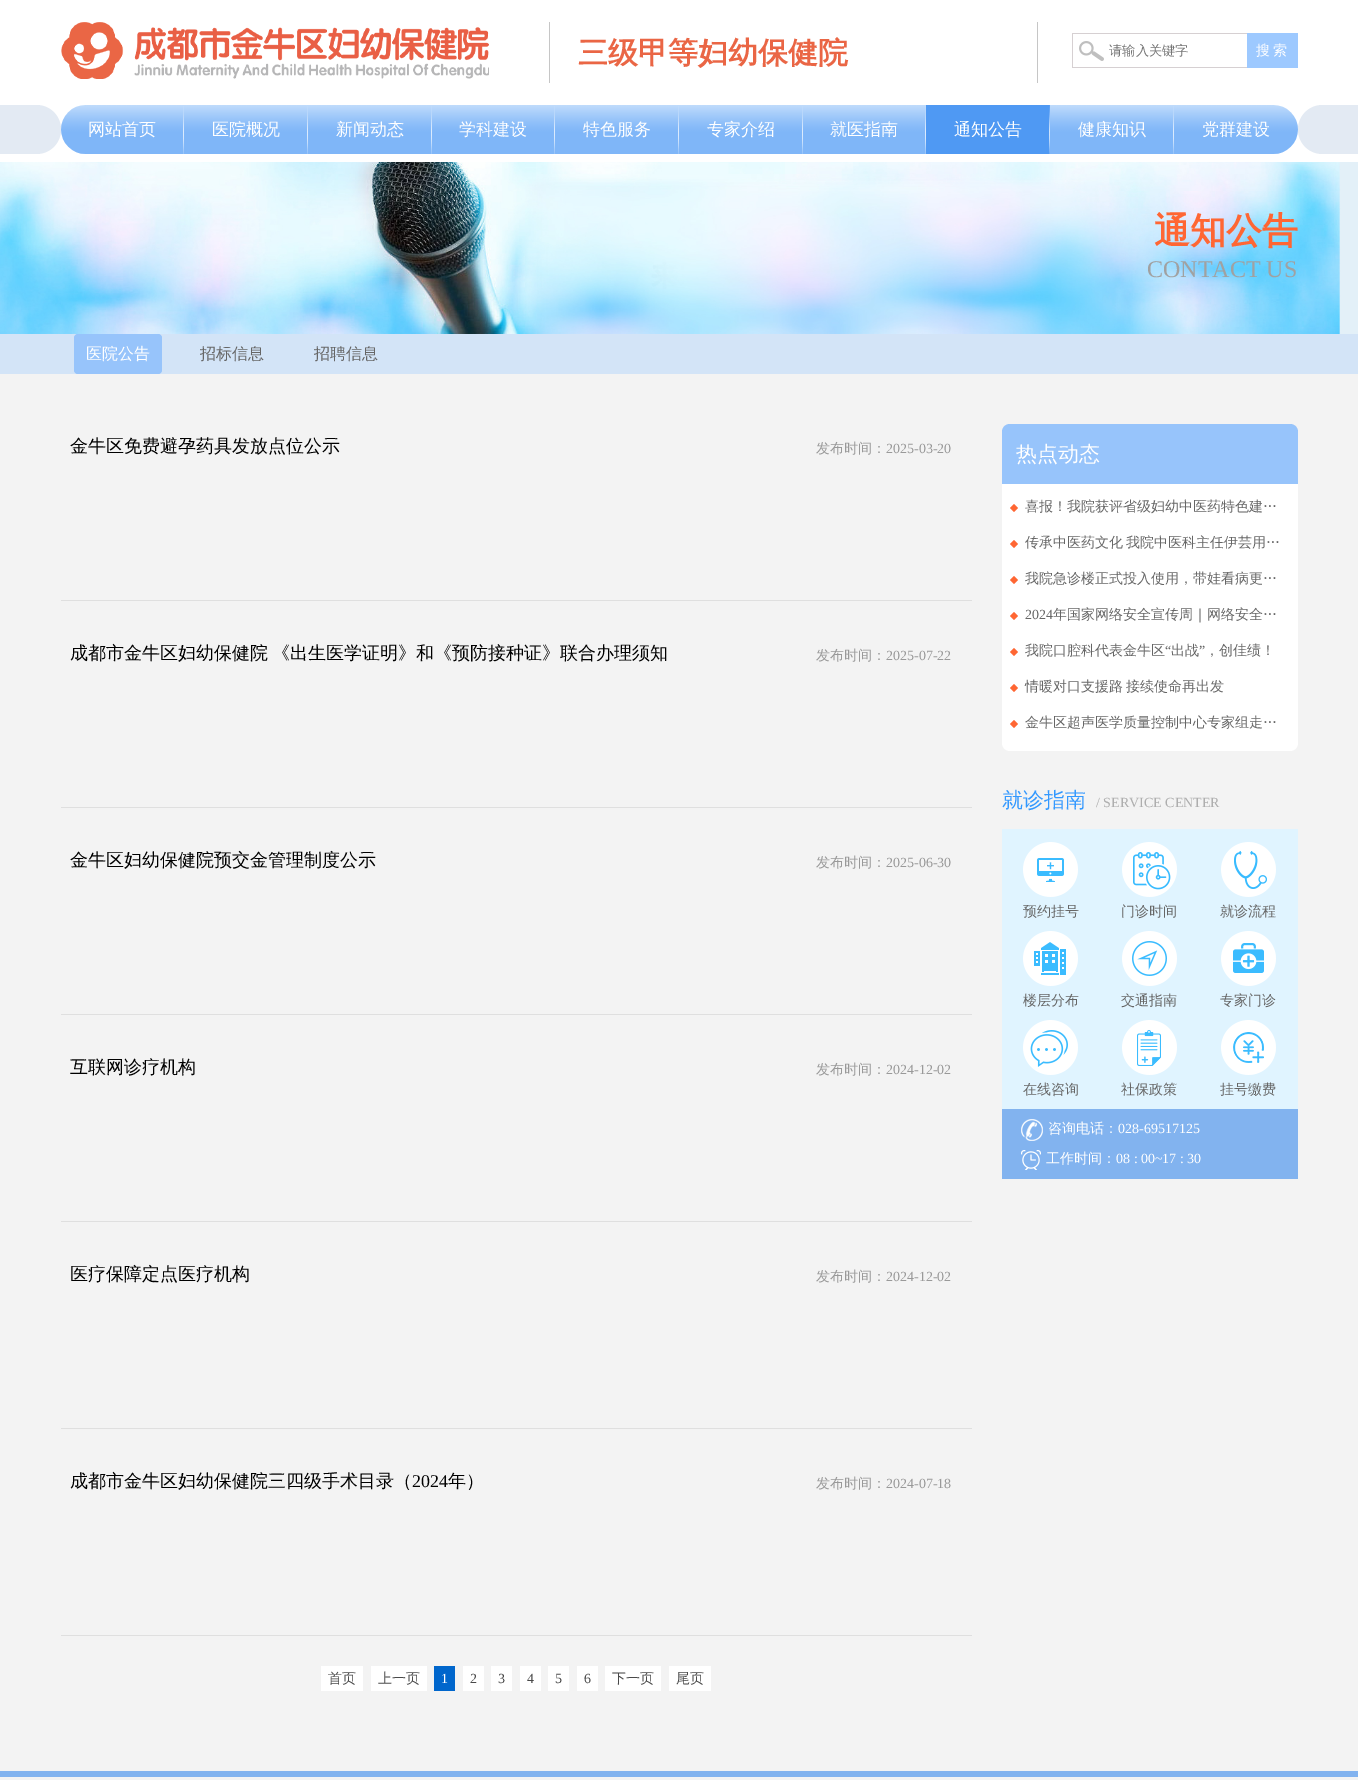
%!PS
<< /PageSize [1358 1780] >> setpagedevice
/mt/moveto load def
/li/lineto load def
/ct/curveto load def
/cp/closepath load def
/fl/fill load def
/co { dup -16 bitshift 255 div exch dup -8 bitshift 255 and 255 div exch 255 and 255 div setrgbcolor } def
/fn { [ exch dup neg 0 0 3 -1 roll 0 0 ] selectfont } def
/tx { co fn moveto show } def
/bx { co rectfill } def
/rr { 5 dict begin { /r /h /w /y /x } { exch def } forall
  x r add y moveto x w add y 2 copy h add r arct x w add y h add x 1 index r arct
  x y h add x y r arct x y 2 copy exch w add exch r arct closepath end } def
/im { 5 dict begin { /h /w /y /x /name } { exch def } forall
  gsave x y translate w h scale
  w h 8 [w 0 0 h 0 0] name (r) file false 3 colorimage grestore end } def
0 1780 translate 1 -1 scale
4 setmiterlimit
0 0 1358 1780 16#FFFFFF bx
(media/1.raw) 61 22 428 57 im
549 22 1 61 16#C6C6C6 bx
1037 22 1 61 16#C6C6C6 bx
(media/2.raw) 1079 41 25 20 im
1072 33 175 1 16#D6D0D2 bx
1072 67 175 1 16#D6D0D2 bx
1072 33 1 35 16#D6D0D2 bx
1247 33 51 35 16#9DC9FF bx
16#E3EAF3 co
0 105 mt 36.5 105 li 50 105 61 116 61 129.5 ct 61 143 50 154 36.5 154 ct 0 154 li cp fl
(media/3.raw) 61 105 1237 49 im
(media/4.raw) 183 106 1 48 im
(media/5.raw) 307 106 1 48 im
(media/6.raw) 431 106 1 48 im
(media/7.raw) 554 106 1 48 im
(media/4.raw) 678 106 1 48 im
(media/5.raw) 802 106 1 48 im
(media/8.raw) 925 106 1 48 im
926 105 124 49 16#4F99F3 bx
(media/9.raw) 1049 105 1 49 im
(media/4.raw) 1173 106 1 48 im
16#E3EAF3 co
1322.5 105 mt 1358 105 li 1358 154 li 1322.5 154 li 1309 154 1298 143 1298 129.5 ct 1298 116 1309 105 1322.5 105 ct cp fl
(media/10.raw) 0 162 1358 172 im
0 334 1358 40 16#D3E4F7 bx
16#97C4FB co
74 334 88 40 4 rr fl
0 374 1358 1397 16#F3F3F3 bx
61 600 911 1 16#DFDFDF bx
61 807 911 1 16#DFDFDF bx
61 1014 911 1 16#DFDFDF bx
61 1221 911 1 16#DFDFDF bx
61 1428 911 1 16#DFDFDF bx
61 1635 911 1 16#DFDFDF bx
321 1666 42 25 16#FFFFFF bx
371 1666 56 25 16#FFFFFF bx
434 1666 21 25 16#0066CC bx
463 1666 21 25 16#FFFFFF bx
491 1666 21 25 16#FFFFFF bx
520 1666 21 25 16#FFFFFF bx
548 1666 21 25 16#FFFFFF bx
577 1666 21 25 16#FFFFFF bx
605 1666 56 25 16#FFFFFF bx
669 1666 42 25 16#FFFFFF bx
16#97C4FB co
1010 424 mt 1290 424 li 1294.5 424 1298 427.5 1298 432 ct 1298 484 li 1002 484 li 1002 432 li 1002 427.5 1005.5 424 1010 424 ct cp fl
16#FFFFFF co
1002 484 mt 1298 484 li 1298 743 li 1298 747.5 1294.5 751 1290 751 ct 1010 751 li 1005.5 751 1002 747.5 1002 743 ct cp fl
(media/11.raw) 1010 504 8 8 im
(media/11.raw) 1010 540 8 8 im
(media/11.raw) 1010 576 8 8 im
(media/11.raw) 1010 612 8 8 im
(media/11.raw) 1010 648 8 8 im
(media/11.raw) 1010 684 8 8 im
(media/11.raw) 1010 720 8 8 im
1002 829 296 280 16#E0F4FF bx
(media/12.raw) 1023 842 55 55 im
(media/13.raw) 1122 842 55 55 im
(media/14.raw) 1221 842 55 55 im
(media/15.raw) 1023 931 55 55 im
(media/16.raw) 1122 931 55 55 im
(media/17.raw) 1221 931 55 55 im
(media/18.raw) 1023 1020 55 55 im
(media/19.raw) 1122 1020 55 55 im
(media/20.raw) 1221 1020 55 55 im
1002 1109 296 70 16#82B3EF bx
(media/21.raw) 1021 1119 22 22 im
(media/22.raw) 1021 1150 20 20 im
0 1777 1358 3 16#F3F3F3 bx
0 1771 1358 6 16#82B3EF bx
(三级甲等妇幼保健院) 578 63 /WenQuanYiZenHei-Bold 30 16#EA6645 tx
(请输入关键字) 1109 55 /WenQuanYiZenHei-Medium 13.25 16#757575 tx
/WenQuanYiZenHei-Medium 14 fn
16#FFFFFF co
1256 55 mt -1 0 32 (搜 索) widthshow
(网站首页) 88 135 /WenQuanYiZenHei-Medium 17 16#FFFFFF tx
(医院概况) 212 135 /WenQuanYiZenHei-Medium 17 16#FFFFFF tx
(新闻动态) 336 135 /WenQuanYiZenHei-Medium 17 16#FFFFFF tx
(学科建设) 459 135 /WenQuanYiZenHei-Medium 17 16#FFFFFF tx
(特色服务) 583 135 /WenQuanYiZenHei-Medium 17 16#FFFFFF tx
(专家介绍) 707 135 /WenQuanYiZenHei-Medium 17 16#FFFFFF tx
(就医指南) 830 135 /WenQuanYiZenHei-Medium 17 16#FFFFFF tx
(通知公告) 954 135 /WenQuanYiZenHei-Medium 17 16#FFFFFF tx
(健康知识) 1078 135 /WenQuanYiZenHei-Medium 17 16#FFFFFF tx
(党群建设) 1202 135 /WenQuanYiZenHei-Medium 17 16#FFFFFF tx
(通知公告) 1154 243 /WenQuanYiZenHei-Bold 36 16#FF6633 tx
(CONTACT US) 1147 277 /LiberationSerif-Regular 24 16#A1A1A1 tx
(医院公告) 86 359 /WenQuanYiZenHei-Medium 16 16#FFFFFF tx
(招标信息) 200 359 /WenQuanYiZenHei-Medium 16 16#666666 tx
(招聘信息) 314 359 /WenQuanYiZenHei-Medium 16 16#666666 tx
(金牛区免费避孕药具发放点位公示) 70 452 /WenQuanYiZenHei-Medium 18 16#000000 tx
(发布时间：) 816 453 /WenQuanYiZenHei-Medium 14 16#999999 tx
(2025-03-20) 886 453 /LiberationSerif-Regular 14 16#999999 tx
/WenQuanYiZenHei-Medium 18 fn
16#000000 co
70 659 mt -1 0 32 (成都市金牛区妇幼保健院 《出生医学证明》和《预防接种证》联合办理须知) widthshow
(发布时间：) 816 660 /WenQuanYiZenHei-Medium 14 16#999999 tx
(2025-07-22) 886 660 /LiberationSerif-Regular 14 16#999999 tx
(金牛区妇幼保健院预交金管理制度公示) 70 866 /WenQuanYiZenHei-Medium 18 16#000000 tx
(发布时间：) 816 867 /WenQuanYiZenHei-Medium 14 16#999999 tx
(2025-06-30) 886 867 /LiberationSerif-Regular 14 16#999999 tx
(互联网诊疗机构) 70 1073 /WenQuanYiZenHei-Medium 18 16#000000 tx
(发布时间：) 816 1074 /WenQuanYiZenHei-Medium 14 16#999999 tx
(2024-12-02) 886 1074 /LiberationSerif-Regular 14 16#999999 tx
(医疗保障定点医疗机构) 70 1280 /WenQuanYiZenHei-Medium 18 16#000000 tx
(发布时间：) 816 1281 /WenQuanYiZenHei-Medium 14 16#999999 tx
(2024-12-02) 886 1281 /LiberationSerif-Regular 14 16#999999 tx
(成都市金牛区妇幼保健院三四级手术目录（) 70 1487 /WenQuanYiZenHei-Medium 18 16#000000 tx
(2024) 412 1487 /LiberationSerif-Regular 18 16#000000 tx
(年）) 448 1487 /WenQuanYiZenHei-Medium 18 16#000000 tx
(发布时间：) 816 1488 /WenQuanYiZenHei-Medium 14 16#999999 tx
(2024-07-18) 886 1488 /LiberationSerif-Regular 14 16#999999 tx
(首页) 328 1683 /WenQuanYiZenHei-Medium 14 16#494949 tx
(上一页) 378 1683 /WenQuanYiZenHei-Medium 14 16#494949 tx
(1) 441 1683 /LiberationSerif-Regular 14 16#FFFFFF tx
(2) 470 1683 /LiberationSerif-Regular 14 16#494949 tx
(3) 498 1683 /LiberationSerif-Regular 14 16#494949 tx
(4) 527 1683 /LiberationSerif-Regular 14 16#494949 tx
(5) 555 1683 /LiberationSerif-Regular 14 16#494949 tx
(6) 584 1683 /LiberationSerif-Regular 14 16#494949 tx
(下一页) 612 1683 /WenQuanYiZenHei-Medium 14 16#494949 tx
(尾页) 676 1683 /WenQuanYiZenHei-Medium 14 16#494949 tx
(热点动态) 1016 461 /WenQuanYiZenHei-Medium 21 16#FFFFFF tx
(喜报！我院获评省级妇幼中医药特色建…) 1025 511 /WenQuanYiZenHei-Medium 14 16#666666 tx
1025 547 mt -1 0 32 (传承中医药文化 我院中医科主任伊芸用…) widthshow
(我院急诊楼正式投入使用，带娃看病更…) 1025 583 /WenQuanYiZenHei-Medium 14 16#666666 tx
(2024) 1025 619 /LiberationSerif-Regular 14 16#666666 tx
(年国家网络安全宣传周｜网络安全…) 1053 619 /WenQuanYiZenHei-Medium 14 16#666666 tx
(我院口腔科代表金牛区) 1025 655 /WenQuanYiZenHei-Medium 14 16#666666 tx
(“) 1165 655 /LiberationSerif-Regular 14 16#666666 tx
(出战) 1171 655 /WenQuanYiZenHei-Medium 14 16#666666 tx
(”) 1199 655 /LiberationSerif-Regular 14 16#666666 tx
(，创佳绩！) 1205 655 /WenQuanYiZenHei-Medium 14 16#666666 tx
1025 691 mt -1 0 32 (情暖对口支援路 接续使命再出发) widthshow
(金牛区超声医学质量控制中心专家组走…) 1025 727 /WenQuanYiZenHei-Medium 14 16#666666 tx
(就诊指南) 1002 807 /WenQuanYiZenHei-Medium 21 16#3399FF tx
(/ SERVICE CENTER) 1096 807 /LiberationSerif-Regular 14 16#AEAEAE tx
(预约挂号) 1023 916 /WenQuanYiZenHei-Medium 14 16#666666 tx
(门诊时间) 1121 916 /WenQuanYiZenHei-Medium 14 16#666666 tx
(就诊流程) 1220 916 /WenQuanYiZenHei-Medium 14 16#666666 tx
(楼层分布) 1023 1005 /WenQuanYiZenHei-Medium 14 16#666666 tx
(交通指南) 1121 1005 /WenQuanYiZenHei-Medium 14 16#666666 tx
(专家门诊) 1220 1005 /WenQuanYiZenHei-Medium 14 16#666666 tx
(在线咨询) 1023 1094 /WenQuanYiZenHei-Medium 14 16#666666 tx
(社保政策) 1121 1094 /WenQuanYiZenHei-Medium 14 16#666666 tx
(挂号缴费) 1220 1094 /WenQuanYiZenHei-Medium 14 16#666666 tx
(咨询电话：) 1048 1133 /WenQuanYiZenHei-Medium 14 16#FFFFFF tx
(028-69517125) 1118 1133 /LiberationSerif-Regular 14 16#FFFFFF tx
(工作时间：) 1046 1163 /WenQuanYiZenHei-Medium 14 16#FFFFFF tx
(08 : 00~17 : 30) 1116 1163 /LiberationSerif-Regular 14 16#FFFFFF tx
showpage
